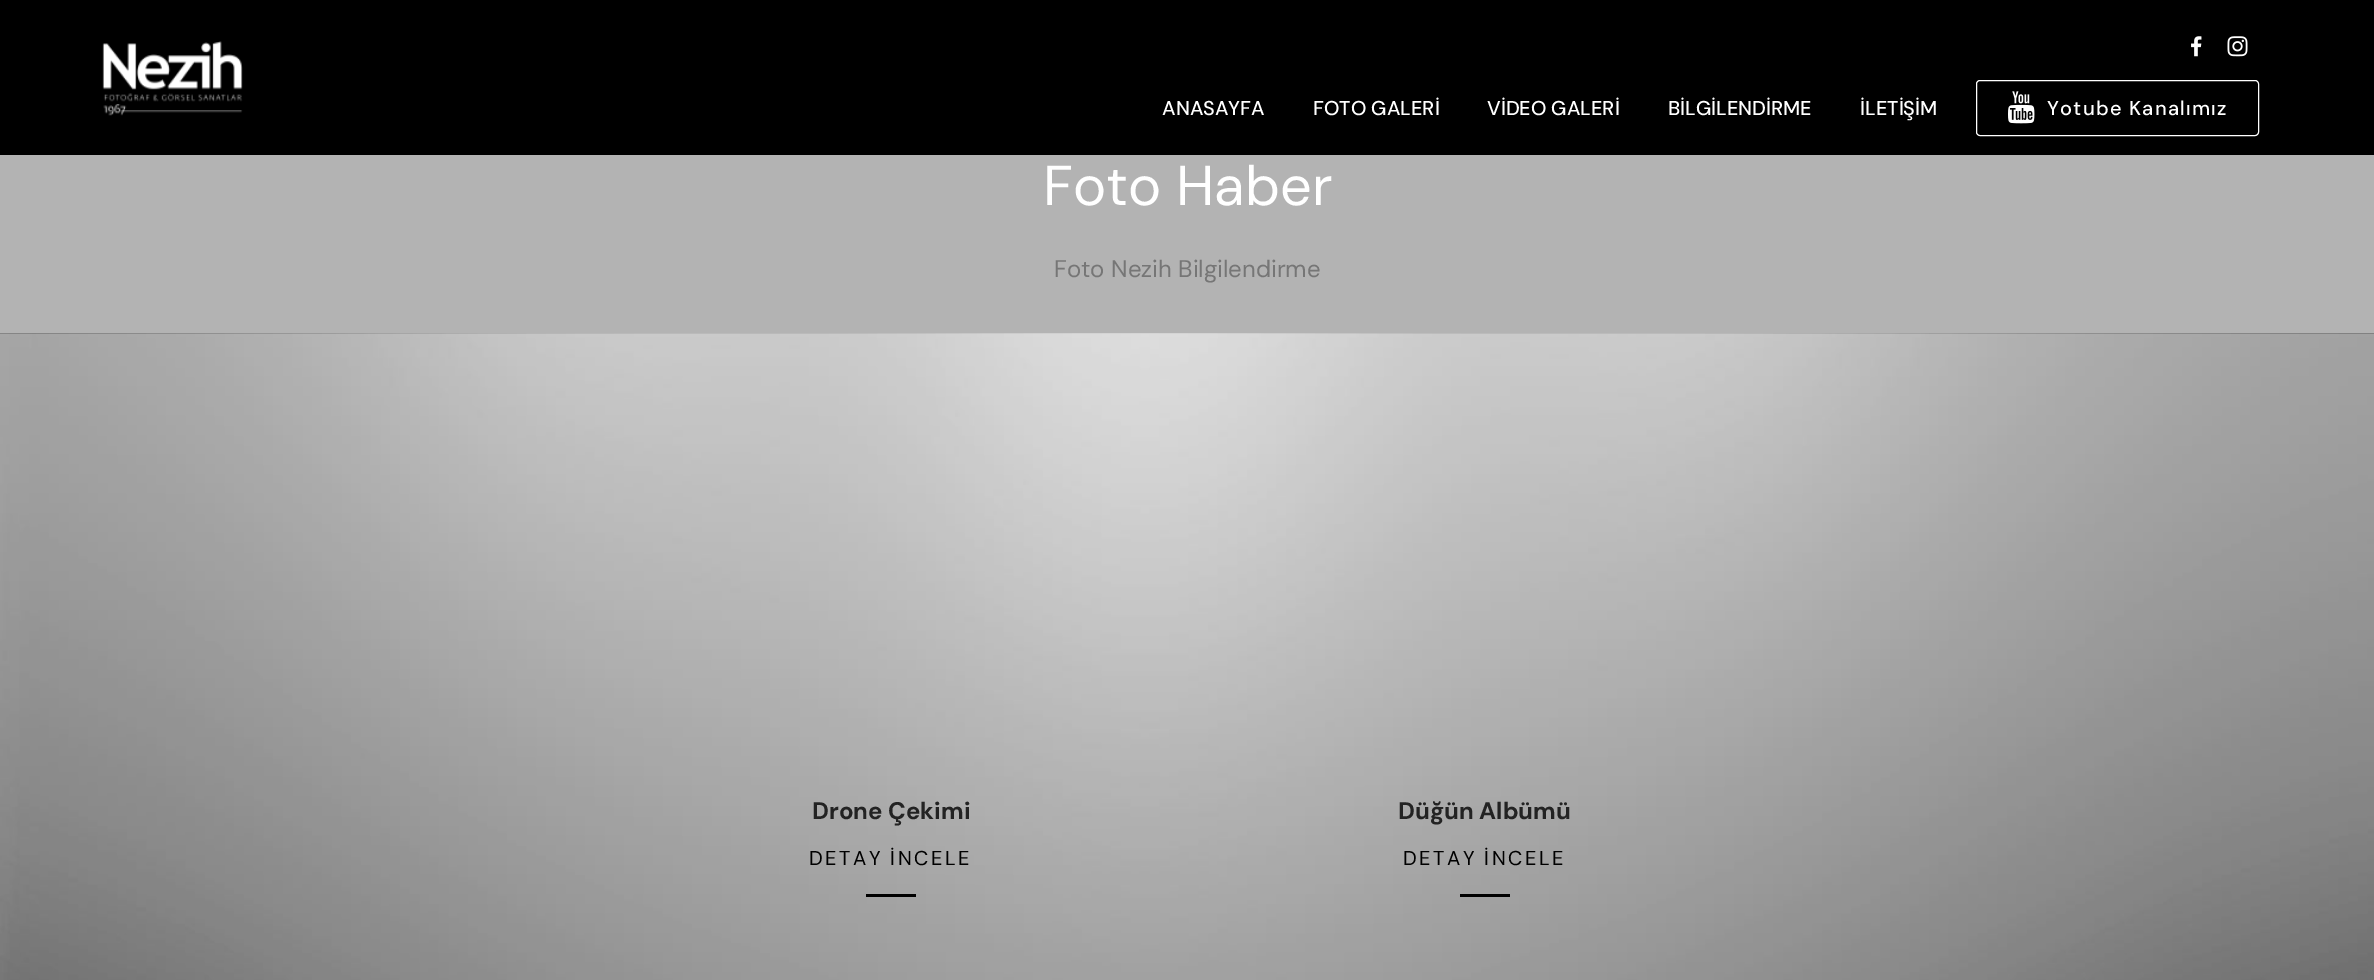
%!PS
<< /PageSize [2374 980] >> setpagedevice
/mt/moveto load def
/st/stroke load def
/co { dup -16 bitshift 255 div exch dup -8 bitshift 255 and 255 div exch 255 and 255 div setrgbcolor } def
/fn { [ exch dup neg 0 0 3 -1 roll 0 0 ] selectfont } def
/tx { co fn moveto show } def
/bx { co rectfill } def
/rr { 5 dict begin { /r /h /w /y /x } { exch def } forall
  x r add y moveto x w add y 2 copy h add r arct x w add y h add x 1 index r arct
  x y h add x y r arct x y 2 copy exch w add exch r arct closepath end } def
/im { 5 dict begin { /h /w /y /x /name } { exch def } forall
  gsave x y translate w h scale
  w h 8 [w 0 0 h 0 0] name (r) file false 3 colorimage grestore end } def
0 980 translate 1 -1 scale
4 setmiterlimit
0 0 2374 980 16#B3B3B3 bx
0 0 2374 155 16#000000 bx
(media/1.raw) 2191 36 11 21 im
(media/2.raw) 2227 36 21 21 im
(media/3.raw) 102 41 141 75 im
16#FFFFFF co
1976.5 80.5 282 55 3.5 rr st
(media/4.raw) 2008 91 27 33 im
(media/5.raw) 0 333 2374 647 im
866 894 50 3 16#000000 bx
1460 894 50 3 16#000000 bx
(ANASAYFA) 1162 115 /DMSans-Medium 20 16#FFFFFF tx
(FOTO GALERİ) 1313 115 /DMSans-Medium 20 16#FFFFFF tx
(VİDEO GALERİ) 1487 115 /DMSans-Medium 20 16#FFFFFF tx
(BİLGİLENDİRME) 1668 115 /DMSans-Medium 20 16#FFFFFF tx
(İLETİŞİM) 1860 115 /DMSans-Medium 20 16#FFFFFF tx
2047 115 mt 1.25 0 (Yotube Kanalımız) ashow
(Foto Haber) 1043 205 /DMSans-Regular 56 16#FFFFFF tx
(Foto Nezih Bilgilendirme) 1054 277 /DMSans-Regular 24 16#767676 tx
(Drone Çekimi) 812 819 /DMSans-Bold 24 16#232323 tx
/DMSans-Regular 20 fn
16#000000 co
809 865 mt 2.5 0 (DETAY İNCELE) ashow
(Düğün Albümü) 1398 819 /DMSans-Bold 24 16#232323 tx
/DMSans-Regular 20 fn
16#000000 co
1403 865 mt 2.5 0 (DETAY İNCELE) ashow
showpage
